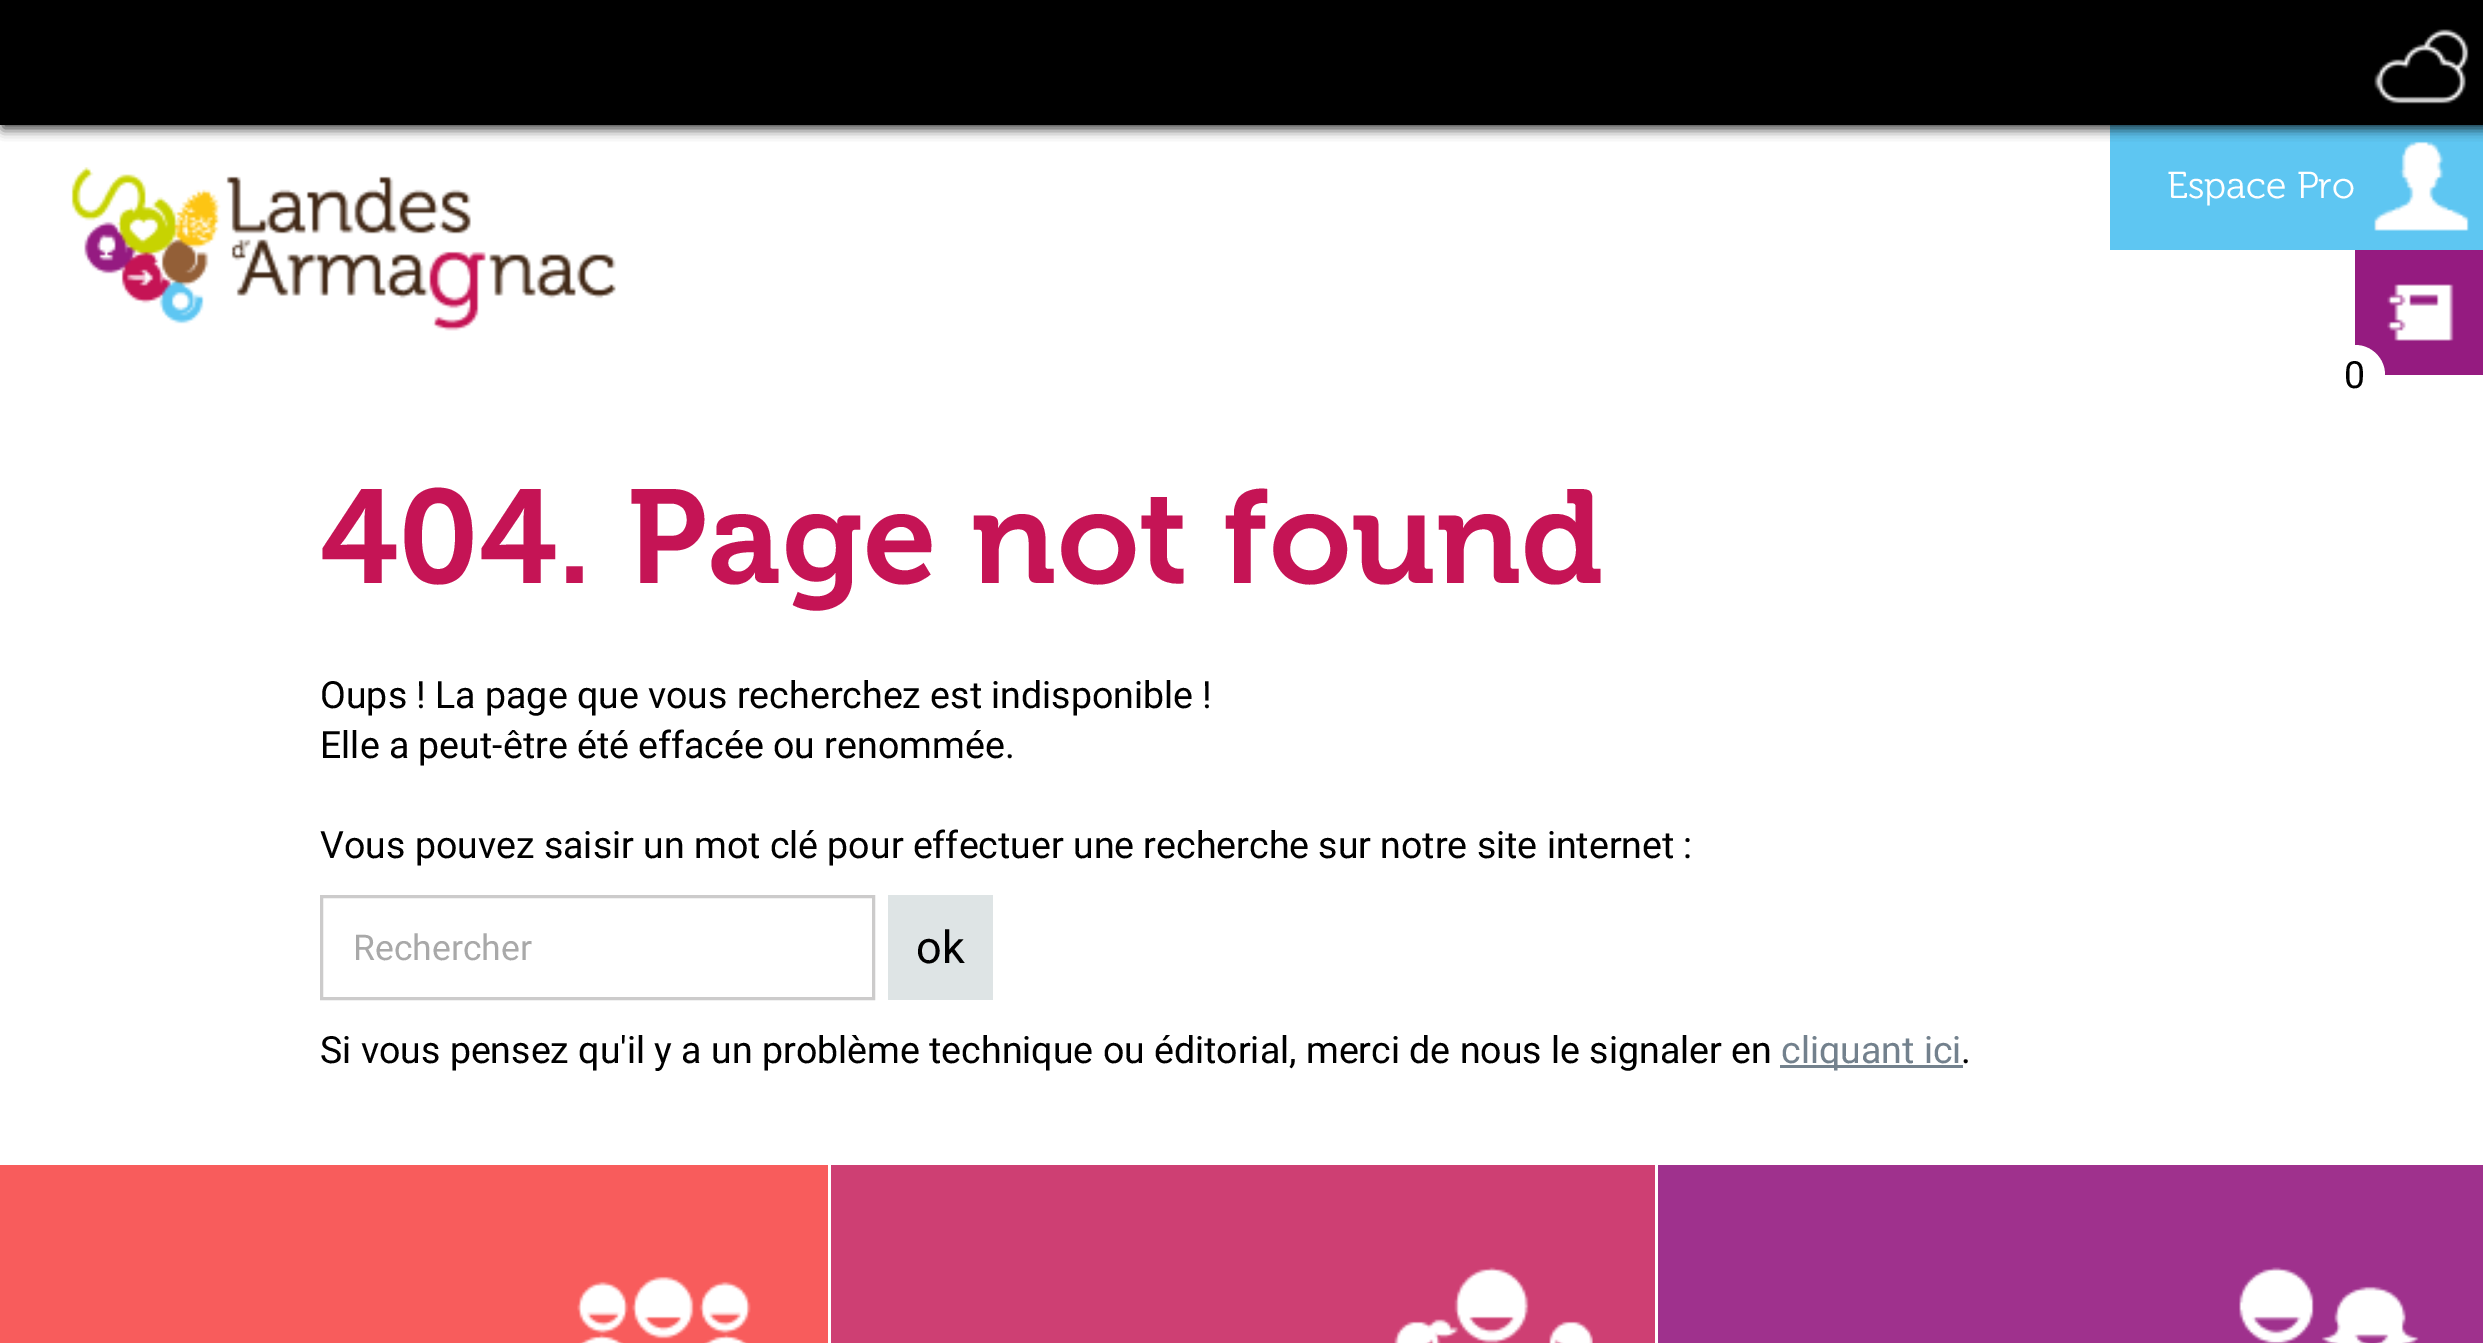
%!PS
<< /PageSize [2483 1343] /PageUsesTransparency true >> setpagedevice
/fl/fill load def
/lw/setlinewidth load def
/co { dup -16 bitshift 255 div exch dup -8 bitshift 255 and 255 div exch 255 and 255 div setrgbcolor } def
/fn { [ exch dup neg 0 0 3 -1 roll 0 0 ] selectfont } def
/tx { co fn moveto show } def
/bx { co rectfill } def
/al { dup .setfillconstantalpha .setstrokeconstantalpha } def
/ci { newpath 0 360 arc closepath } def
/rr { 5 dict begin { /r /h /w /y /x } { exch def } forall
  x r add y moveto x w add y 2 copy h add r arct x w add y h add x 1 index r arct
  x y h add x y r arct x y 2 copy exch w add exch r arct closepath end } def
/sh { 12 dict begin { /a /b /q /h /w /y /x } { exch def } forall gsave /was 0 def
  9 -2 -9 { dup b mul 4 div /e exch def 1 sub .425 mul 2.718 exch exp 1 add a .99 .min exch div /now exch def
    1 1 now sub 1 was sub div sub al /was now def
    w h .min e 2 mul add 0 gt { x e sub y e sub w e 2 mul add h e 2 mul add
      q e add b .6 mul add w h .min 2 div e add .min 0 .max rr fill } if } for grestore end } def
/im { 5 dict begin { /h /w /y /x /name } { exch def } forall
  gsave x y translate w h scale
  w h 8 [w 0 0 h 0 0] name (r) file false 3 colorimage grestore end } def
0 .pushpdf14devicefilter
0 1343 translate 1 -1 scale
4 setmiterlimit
0 0 2483 1343 16#FFFFFF bx
2110 125 373 125 16#5EC6F2 bx
(media/3.raw) 2374 141 95 90 im
16#000000 co
3 3 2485 125 0 6 .5 sh
3 3 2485 125 0 6 .5 sh
0 0 2483 125 16#000000 bx
(media/1.raw) 2374 29 95 75 im
(media/2.raw) 71 167 545 164 im
2355 250 128 125 16#951B80 bx
(media/4.raw) 2387 284 67 57 im
16#FFFFFF co
2355 375 30 ci fl
16#CCCBCB co
3 lw
321.5 896.5 552 102 rectstroke
888 895 105 105 16#DEE4E5 bx
1780 1065 183 3 16#73818D bx
0 1165 828 178 16#F85C5C bx
(media/5.raw) 577 1276 174 67 im
831 1165 824 178 16#CE3F73 bx
(media/6.raw) 1394 1267 199 76 im
1658 1165 825 178 16#9F318D bx
(media/7.raw) 2239 1267 180 76 im
(Espace Pro) 2167 198 /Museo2-Regular 37.5 16#FFFFFF tx
(0) 2344 388 /Roboto-Regular 37.5 16#000000 tx
(404. Page not found) 320 583 /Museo-Regular 132.5 16#C51455 tx
(Oups ! La page que vous recherchez est indisponible !) 320 708 /Roboto-Regular 37.5 16#000000 tx
(Elle a peut-être été effacée ou renommée.) 320 758 /Roboto-Regular 37.5 16#000000 tx
(Vous pouvez saisir un mot clé pour effectuer une recherche sur notre site internet :) 320 858 /Roboto-Regular 37.5 16#000000 tx
(Rechercher) 353 960 /Roboto-Regular 35.5 16#A9A9A9 tx
(ok) 916 963 /Roboto-Regular 45 16#000000 tx
(Si vous pensez qu'il y a un problème technique ou éditorial, merci de nous le signaler en) 320 1063 /Roboto-Regular 37.5 16#000000 tx
(cliquant ici) 1781 1063 /Roboto-Regular 37.5 16#73818D tx
(.) 1961 1063 /Roboto-Regular 37.5 16#000000 tx
.poppdf14devicefilter showpage
